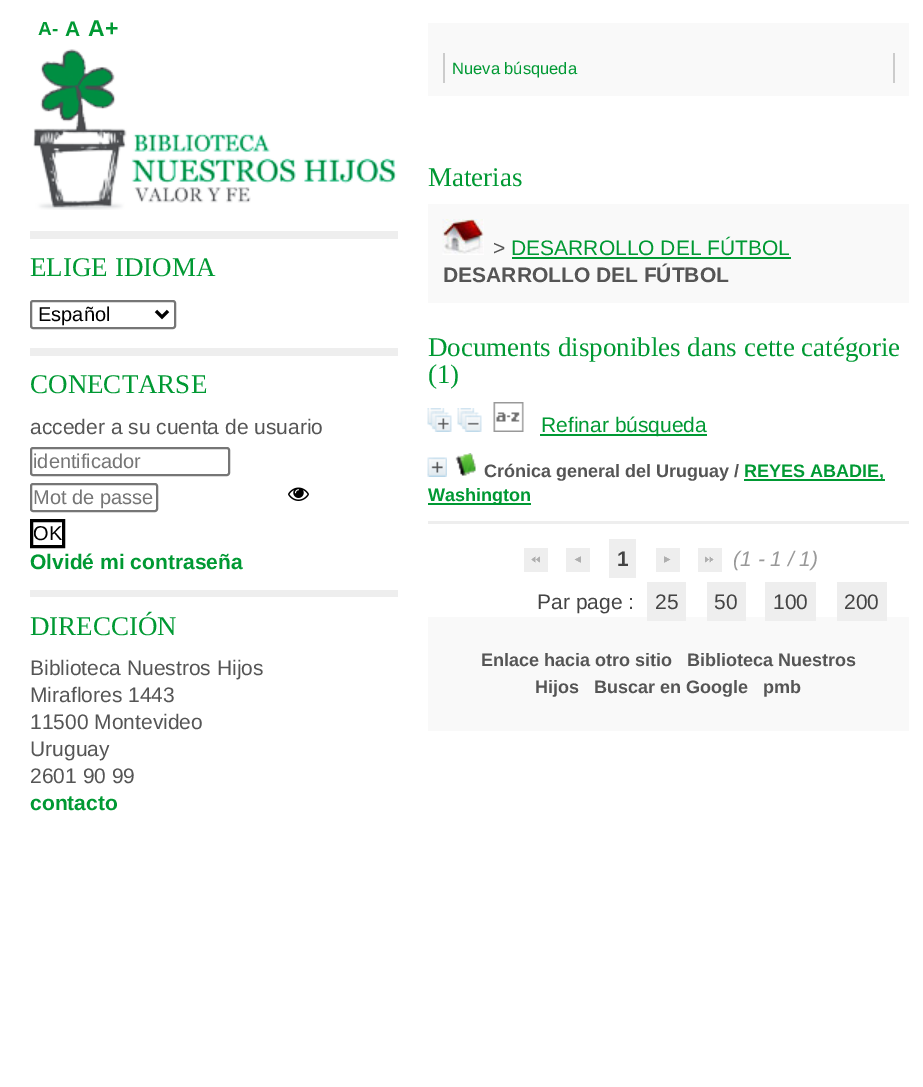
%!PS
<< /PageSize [923 1087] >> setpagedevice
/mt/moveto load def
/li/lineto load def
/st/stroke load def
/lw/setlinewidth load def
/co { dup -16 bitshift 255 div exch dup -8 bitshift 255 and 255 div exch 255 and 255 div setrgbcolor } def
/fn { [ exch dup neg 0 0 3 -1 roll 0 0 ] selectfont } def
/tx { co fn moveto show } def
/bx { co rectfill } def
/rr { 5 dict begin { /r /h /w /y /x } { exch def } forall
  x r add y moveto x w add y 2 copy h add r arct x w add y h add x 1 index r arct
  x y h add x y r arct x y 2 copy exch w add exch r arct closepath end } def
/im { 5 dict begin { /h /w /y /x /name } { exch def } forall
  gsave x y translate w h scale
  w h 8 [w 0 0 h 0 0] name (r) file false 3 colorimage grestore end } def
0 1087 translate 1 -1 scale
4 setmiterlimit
0 0 923 1087 16#FFFFFF bx
(media/1.raw) 33 49 364 161 im
30 231 368 8 16#EEEEEE bx
16#767676 co
2 lw
31 301 144 27 2 rr st
16#000000 co
3 lw
156 311 mt 162 317 li 168 311 li st
30 348 368 8 16#EEEEEE bx
16#767676 co
2 lw
31 448 198 27 2 rr st
31 484 126 27 2 rr st
(media/2.raw) 288 487 21 14 im
16#000000 co
3 lw
31.5 520.5 32 26 rectstroke
30 590 368 7 16#EEEEEE bx
428 23 481 73 16#F9F9F9 bx
893 53 2 30 16#CCCCCC bx
443 53 2 30 16#CCCCCC bx
428 204 481 99 16#F9F9F9 bx
(media/3.raw) 442 219 42 36 im
512 257 279 2 16#009933 bx
(media/4.raw) 427 408 25 24 im
(media/5.raw) 457 408 25 24 im
(media/6.raw) 493 402 31 30 im
540 434 167 2 16#009933 bx
(media/7.raw) 427 457 20 20 im
(media/8.raw) 455 453 21 23 im
744 479 141 2 16#009933 bx
428 503 103 2 16#009933 bx
428 521 481 3 16#EEEEEE bx
524 548 24 24 16#EEEEEE bx
(media/9.raw) 531 556 9 7 im
566 548 24 24 16#EEEEEE bx
(media/10.raw) 574 556 7 7 im
609 539 27 39 16#EEEEEE bx
656 548 24 24 16#EEEEEE bx
(media/11.raw) 664 556 7 7 im
698 548 24 24 16#EEEEEE bx
(media/12.raw) 705 556 9 7 im
428 617 481 114 16#F9F9F9 bx
647 582 39 39 16#EEEEEE bx
707 582 39 39 16#EEEEEE bx
765 582 51 39 16#EEEEEE bx
837 582 50 39 16#EEEEEE bx
(A-) 38 35 /LiberationSans-Bold 19 16#009933 tx
(A) 65 36 /LiberationSans-Bold 21 16#009933 tx
(A+) 88 36 /LiberationSans-Bold 23 16#009933 tx
(ELIGE IDIOMA) 30 276 /LiberationSerif-Regular 27 16#009933 tx
(Español) 38 321 /LiberationSans-Regular 20 16#000000 tx
(CONECTARSE) 30 393 /LiberationSerif-Regular 27 16#009933 tx
(acceder a su cuenta de usuario) 30 434 /LiberationSans-Regular 21 16#555555 tx
(identificador) 33 468 /LiberationSans-Regular 20 16#757575 tx
(Mot de passe) 33 504 /LiberationSans-Regular 20 16#757575 tx
(OK) 33 540 /LiberationSans-Regular 20 16#000000 tx
(Olvidé mi contraseña) 30 569 /LiberationSans-Bold 21 16#009933 tx
(DIRECCIÓN) 30 635 /LiberationSerif-Regular 27 16#009933 tx
(Biblioteca Nuestros Hijos) 30 675 /LiberationSans-Regular 21 16#555555 tx
(Miraflores 1443) 30 702 /LiberationSans-Regular 21 16#555555 tx
(11500 Montevideo) 30 729 /LiberationSans-Regular 21 16#555555 tx
(Uruguay) 30 756 /LiberationSans-Regular 21 16#555555 tx
(2601 90 99) 30 783 /LiberationSans-Regular 21 16#555555 tx
(contacto) 30 810 /LiberationSans-Bold 21 16#009933 tx
(Nueva búsqueda) 452 74 /LiberationSans-Regular 16.5 16#009933 tx
(Materias) 428 186 /LiberationSerif-Regular 27 16#009933 tx
(>) 493 255 /LiberationSans-Regular 21 16#555555 tx
(DESARROLLO DEL FÚTBOL) 511 255 /LiberationSans-Regular 21 16#009933 tx
(DESARROLLO DEL FÚTBOL) 443 282 /LiberationSans-Bold 21 16#555555 tx
(Documents disponibles dans cette catégorie) 428 356 /LiberationSerif-Regular 27 16#009933 tx
(\(1\)) 428 383 /LiberationSerif-Regular 27 16#009933 tx
(Refinar búsqueda) 541 432 /LiberationSans-Regular 21 16#009933 tx
(Crónica general del Uruguay /) 484 477 /LiberationSans-Bold 18 16#555555 tx
(REYES ABADIE,) 744 477 /LiberationSans-Bold 18 16#009933 tx
(Washington) 428 501 /LiberationSans-Bold 18 16#009933 tx
(1) 617 566 /LiberationSans-Bold 21 16#444444 tx
(\(1 - 1 / 1\)) 733 566 /LiberationSans-Italic 21 16#999999 tx
(Par page :) 537 609 /LiberationSans-Regular 21 16#444444 tx
(25) 655 609 /LiberationSans-Regular 21 16#444444 tx
(50) 714 609 /LiberationSans-Regular 21 16#444444 tx
(100) 773 609 /LiberationSans-Regular 21 16#444444 tx
(200) 844 609 /LiberationSans-Regular 21 16#444444 tx
(Enlace hacia otro sitio) 481 666 /LiberationSans-Bold 18 16#555555 tx
(Biblioteca Nuestros) 687 666 /LiberationSans-Bold 18 16#555555 tx
(Hijos) 535 693 /LiberationSans-Bold 18 16#555555 tx
(Buscar en Google) 594 693 /LiberationSans-Bold 18 16#555555 tx
(pmb) 763 693 /LiberationSans-Bold 18 16#555555 tx
showpage
